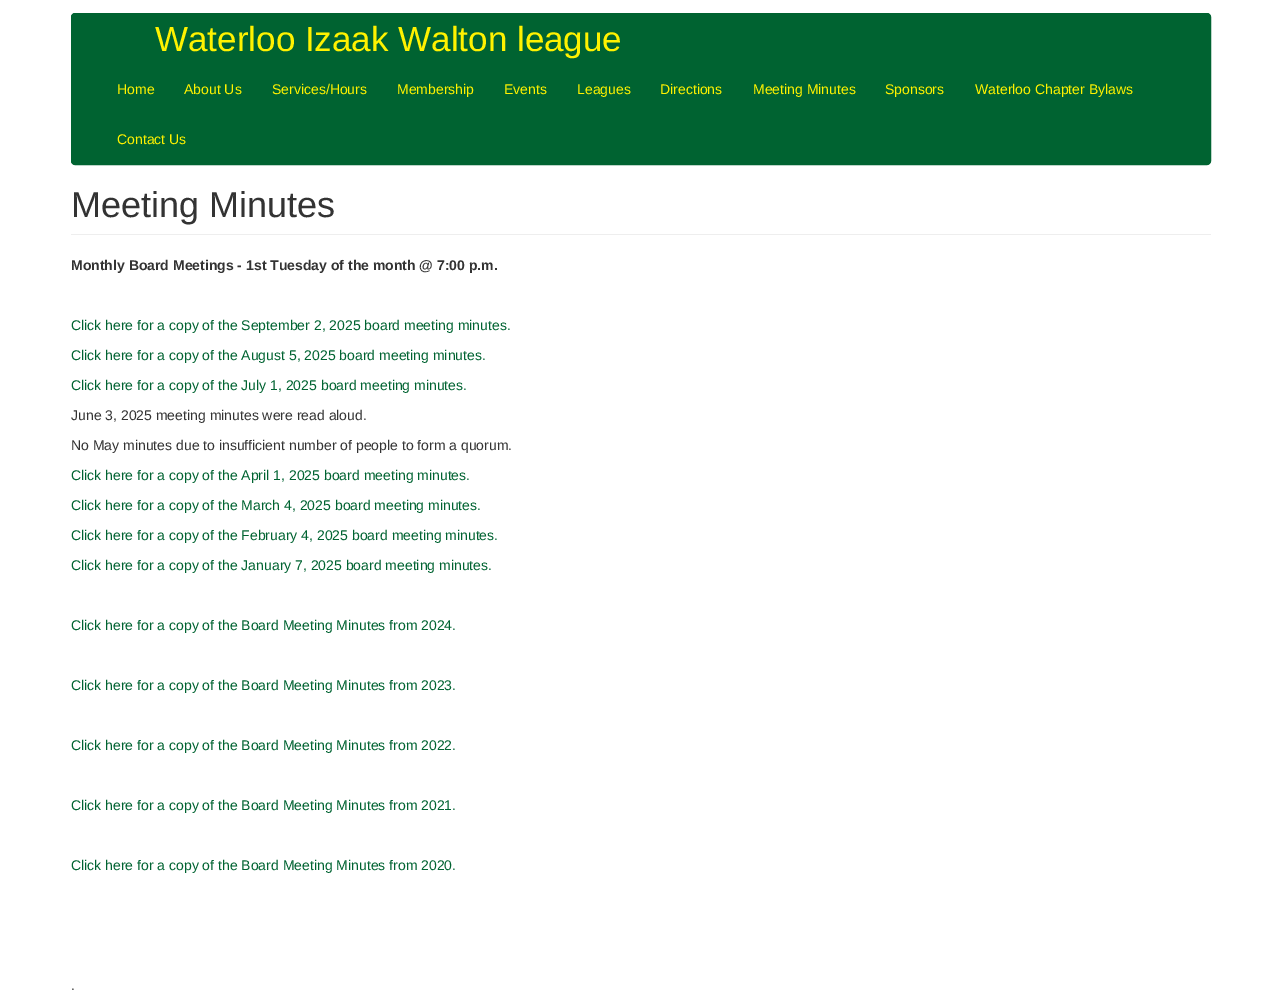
%!PS
<< /PageSize [1282 992] >> setpagedevice
/fl/fill load def
/st/stroke load def
/gs/gsave load def
/gr/grestore load def
/co { dup -16 bitshift 255 div exch dup -8 bitshift 255 and 255 div exch 255 and 255 div setrgbcolor } def
/fn { [ exch dup neg 0 0 3 -1 roll 0 0 ] selectfont } def
/tx { co fn moveto show } def
/bx { co rectfill } def
/rr { 5 dict begin { /r /h /w /y /x } { exch def } forall
  x r add y moveto x w add y 2 copy h add r arct x w add y h add x 1 index r arct
  x y h add x y r arct x y 2 copy exch w add exch r arct closepath end } def
0 992 translate 1 -1 scale
4 setmiterlimit
0 0 1282 992 16#FFFFFF bx
16#006331 co
71.5 13.5 1139 151 3.5 rr gs fl gr
st
71 234 1140 1 16#EEEEEE bx
(Waterloo Izaak Walton league) 155 51 /LiberationSans-Regular 35 16#FFF200 tx
(Home) 117 94 /LiberationSans-Regular 14 16#FFF200 tx
(About Us) 184 94 /LiberationSans-Regular 14 16#FFF200 tx
(Services/Hours) 272 94 /LiberationSans-Regular 14 16#FFF200 tx
(Membership) 397 94 /LiberationSans-Regular 14 16#FFF200 tx
(Events) 504 94 /LiberationSans-Regular 14 16#FFF200 tx
(Leagues) 577 94 /LiberationSans-Regular 14 16#FFF200 tx
(Directions) 660 94 /LiberationSans-Regular 14 16#FFF200 tx
(Meeting Minutes) 753 94 /LiberationSans-Regular 14 16#FFF200 tx
(Sponsors) 885 94 /LiberationSans-Regular 14 16#FFF200 tx
(Waterloo Chapter Bylaws) 975 94 /LiberationSans-Regular 14 16#FFF200 tx
(Contact Us) 117 144 /LiberationSans-Regular 14 16#FFF200 tx
(Meeting Minutes) 71 217 /LiberationSans-Regular 36 16#333333 tx
(Monthly Board Meetings - 1st Tuesday of the month @ 7:00 p.m.) 71 270 /LiberationSans-Bold 14 16#333333 tx
(Click here for a copy of the September 2, 2025 board meeting minutes.) 71 330 /LiberationSans-Regular 14 16#006331 tx
(Click here for a copy of the August 5, 2025 board meeting minutes.) 71 360 /LiberationSans-Regular 14 16#006331 tx
(Click here for a copy of the July 1, 2025 board meeting minutes.) 71 390 /LiberationSans-Regular 14 16#006331 tx
(June 3, 2025 meeting minutes were read aloud.) 71 420 /LiberationSans-Regular 14 16#333333 tx
(No May minutes due to insufficient number of people to form a quorum.) 71 450 /LiberationSans-Regular 14 16#333333 tx
(Click here for a copy of the April 1, 2025 board meeting minutes.) 71 480 /LiberationSans-Regular 14 16#006331 tx
(Click here for a copy of the March 4, 2025 board meeting minutes.) 71 510 /LiberationSans-Regular 14 16#006331 tx
(Click here for a copy of the February 4, 2025 board meeting minutes.) 71 540 /LiberationSans-Regular 14 16#006331 tx
(Click here for a copy of the January 7, 2025 board meeting minutes.) 71 570 /LiberationSans-Regular 14 16#006331 tx
(Click here for a copy of the Board Meeting Minutes from 2024.) 71 630 /LiberationSans-Regular 14 16#006331 tx
(Click here for a copy of the Board Meeting Minutes from 2023.) 71 690 /LiberationSans-Regular 14 16#006331 tx
(Click here for a copy of the Board Meeting Minutes from 2022.) 71 750 /LiberationSans-Regular 14 16#006331 tx
(Click here for a copy of the Board Meeting Minutes from 2021.) 71 810 /LiberationSans-Regular 14 16#006331 tx
(Click here for a copy of the Board Meeting Minutes from 2020.) 71 870 /LiberationSans-Regular 14 16#006331 tx
(.) 71 990 /LiberationSans-Regular 14 16#333333 tx
showpage
